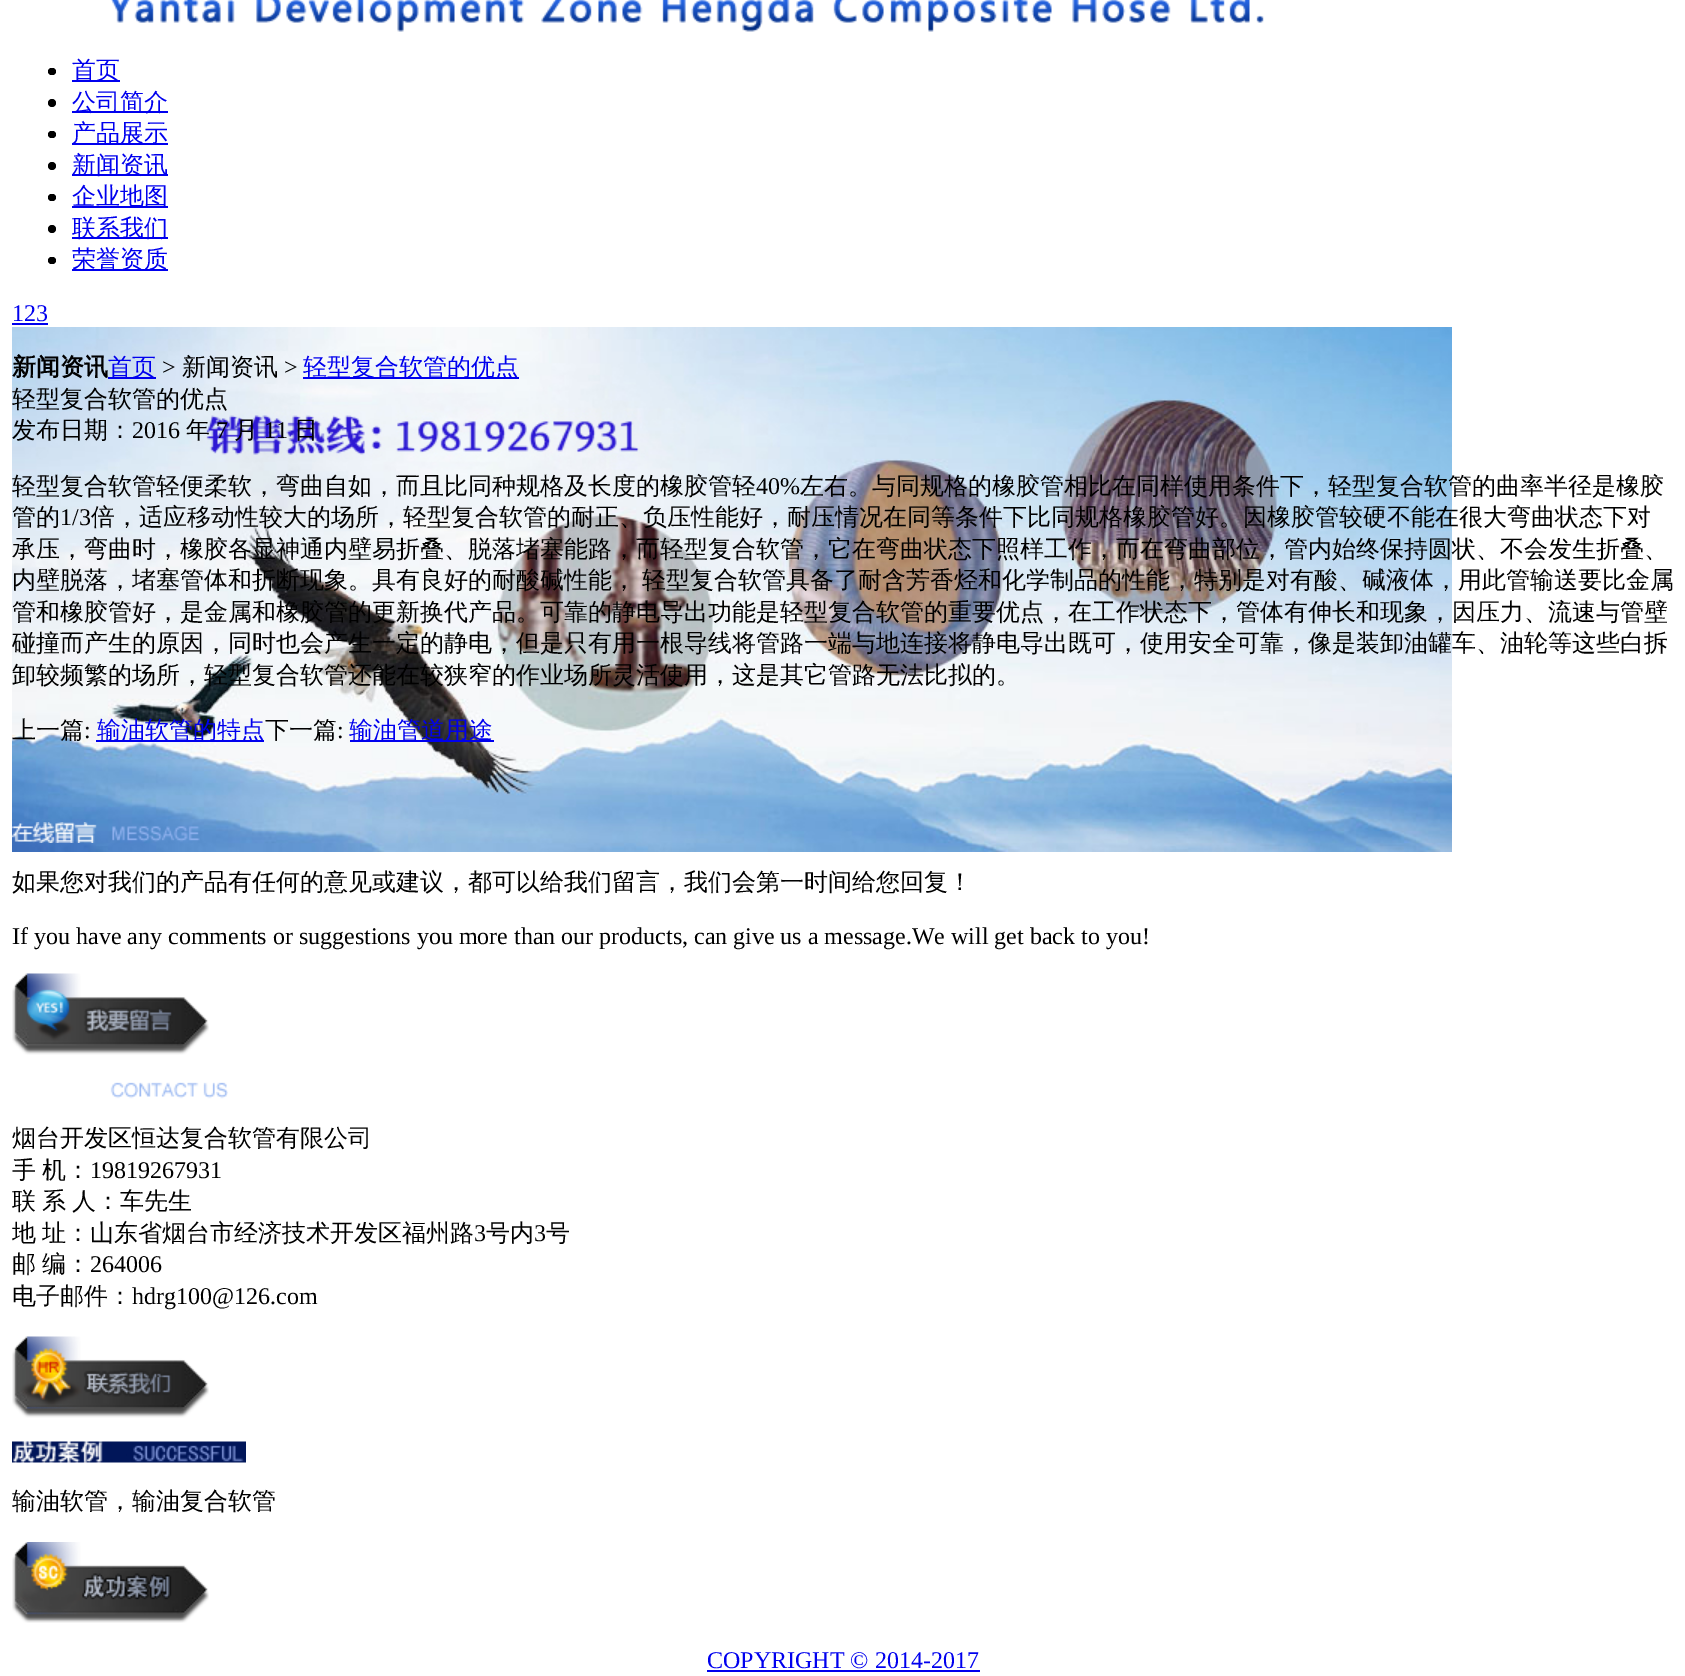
%!PS
<< /PageSize [1685 1676] >> setpagedevice
/mt/moveto load def
/fl/fill load def
/co { dup -16 bitshift 255 div exch dup -8 bitshift 255 and 255 div exch 255 and 255 div setrgbcolor } def
/fn { [ exch dup neg 0 0 3 -1 roll 0 0 ] selectfont } def
/tx { co fn moveto show } def
/bx { co rectfill } def
/ci { newpath 0 360 arc closepath } def
/rr { 5 dict begin { /r /h /w /y /x } { exch def } forall
  x r add y moveto x w add y 2 copy h add r arct x w add y h add x 1 index r arct
  x y h add x y r arct x y 2 copy exch w add exch r arct closepath end } def
/im { 5 dict begin { /h /w /y /x /name } { exch def } forall
  gsave x y translate w h scale
  w h 8 [w 0 0 h 0 0] name (r) file false 3 colorimage grestore end } def
0 1676 translate 1 -1 scale
4 setmiterlimit
0 0 1685 1676 16#FFFFFF bx
(media/1.raw) 111 0 1153 32 im
16#000000 co
48 68 8 7 3.5 rr fl
72 80 48 2 16#0000EE bx
16#000000 co
52 103 4 ci fl
72 111 96 2 16#0000EE bx
16#000000 co
48 131 8 7 3.5 rr fl
72 143 96 2 16#0000EE bx
16#000000 co
52 166 4 ci fl
72 174 96 2 16#0000EE bx
16#000000 co
48 194 8 7 3.5 rr fl
72 206 96 2 16#0000EE bx
16#000000 co
52 229 4 ci fl
72 237 96 2 16#0000EE bx
16#000000 co
48 257 8 7 3.5 rr fl
72 269 96 2 16#0000EE bx
12 323 36 2 16#0000EE bx
(media/2.raw) 12 327 1440 525 im
108 377 48 2 16#0000EE bx
303 377 216 2 16#0000EE bx
96 740 168 2 16#0000EE bx
350 740 144 2 16#0000EE bx
(media/3.raw) 12 822 188 21 im
(media/4.raw) 12 973 197 82 im
(media/5.raw) 110 1082 118 17 im
(media/6.raw) 12 1336 197 82 im
(media/7.raw) 12 1441 234 22 im
(media/8.raw) 12 1542 197 81 im
707 1670 273 2 16#0000EE bx
(首页) 72 78 /WenQuanYiZenHei-Medium 24 16#0000EE tx
(公司简介) 72 110 /WenQuanYiZenHei-Medium 24 16#0000EE tx
(产品展示) 72 141 /WenQuanYiZenHei-Medium 24 16#0000EE tx
(新闻资讯) 72 173 /WenQuanYiZenHei-Medium 24 16#0000EE tx
(企业地图) 72 204 /WenQuanYiZenHei-Medium 24 16#0000EE tx
(联系我们) 72 236 /WenQuanYiZenHei-Medium 24 16#0000EE tx
(荣誉资质) 72 267 /WenQuanYiZenHei-Medium 24 16#0000EE tx
(123) 12 321 /LiberationSerif-Regular 24 16#0000EE tx
(新闻资讯) 12 375 /WenQuanYiZenHei-Bold 24 16#000000 tx
(首页) 108 375 /WenQuanYiZenHei-Medium 24 16#0000EE tx
(>) 162 375 /LiberationSerif-Regular 24 16#000000 tx
(新闻资讯) 182 375 /WenQuanYiZenHei-Medium 24 16#000000 tx
(>) 284 375 /LiberationSerif-Regular 24 16#000000 tx
(轻型复合软管的优点) 303 375 /WenQuanYiZenHei-Medium 24 16#0000EE tx
(轻型复合软管的优点) 12 407 /WenQuanYiZenHei-Medium 24 16#000000 tx
(发布日期：) 12 438 /WenQuanYiZenHei-Medium 24 16#000000 tx
(2016) 132 438 /LiberationSerif-Regular 24 16#000000 tx
(年) 186 438 /WenQuanYiZenHei-Medium 24 16#000000 tx
(7) 216 438 /LiberationSerif-Regular 24 16#000000 tx
(月) 234 438 /WenQuanYiZenHei-Medium 24 16#000000 tx
(11) 264 438 /LiberationSerif-Regular 24 16#000000 tx
(日) 294 438 /WenQuanYiZenHei-Medium 24 16#000000 tx
(轻型复合软管轻便柔软，弯曲自如，而且比同种规格及长度的橡胶管轻) 12 494 /WenQuanYiZenHei-Medium 24 16#000000 tx
(40%) 756 494 /LiberationSerif-Regular 24 16#000000 tx
(左右。与同规格的橡胶管相比在同样使用条件下，轻型复合软管的曲率半径是橡胶) 800 494 /WenQuanYiZenHei-Medium 24 16#000000 tx
(管的) 12 525 /WenQuanYiZenHei-Medium 24 16#000000 tx
(1/3) 60 525 /LiberationSerif-Regular 24 16#000000 tx
(倍，适应移动性较大的场所，轻型复合软管的耐正、负压性能好，耐压情况在同等条件下比同规格橡胶管好。因橡胶管较硬不能在很大弯曲状态下对) 91 525 /WenQuanYiZenHei-Medium 24 16#000000 tx
(承压，弯曲时，橡胶各显神通内壁易折叠、脱落堵塞能路，而轻型复合软管，它在弯曲状态下照样工作，而在弯曲部位，管内始终保持圆状、不会发生折叠、) 12 557 /WenQuanYiZenHei-Medium 24 16#000000 tx
12 588 mt -1 0 32 (内壁脱落，堵塞管体和折断现象。具有良好的耐酸碱性能， 轻型复合软管具备了耐含芳香烃和化学制品的性能，特别是对有酸、碱液体，用此管输送要比金属) widthshow
(管和橡胶管好，是金属和橡胶管的更新换代产品。可靠的静电导出功能是轻型复合软管的重要优点，在工作状态下，管体有伸长和现象，因压力、流速与管壁) 12 620 /WenQuanYiZenHei-Medium 24 16#000000 tx
(碰撞而产生的原因，同时也会产生一定的静电，但是只有用一根导线将管路一端与地连接将静电导出既可，使用安全可靠，像是装卸油罐车、油轮等这些白拆) 12 651 /WenQuanYiZenHei-Medium 24 16#000000 tx
(卸较频繁的场所，轻型复合软管还能在较狭窄的作业场所灵活使用，这是其它管路无法比拟的。) 12 683 /WenQuanYiZenHei-Medium 24 16#000000 tx
(上一篇) 12 738 /WenQuanYiZenHei-Medium 24 16#000000 tx
(:) 84 738 /LiberationSerif-Regular 24 16#000000 tx
(输油软管的特点) 97 738 /WenQuanYiZenHei-Medium 24 16#0000EE tx
(下一篇) 265 738 /WenQuanYiZenHei-Medium 24 16#000000 tx
(:) 337 738 /LiberationSerif-Regular 24 16#000000 tx
(输油管道用途) 349 738 /WenQuanYiZenHei-Medium 24 16#0000EE tx
(如果您对我们的产品有任何的意见或建议，都可以给我们留言，我们会第一时间给您回复！) 12 890 /WenQuanYiZenHei-Medium 24 16#000000 tx
(If you have any comments or suggestions you more than our products, can give us a message.We will get back to you!) 12 944 /LiberationSerif-Regular 24 16#000000 tx
(烟台开发区恒达复合软管有限公司) 12 1146 /WenQuanYiZenHei-Medium 24 16#000000 tx
12 1178 mt -1 0 32 (手 机：) widthshow
(19819267931) 90 1178 /LiberationSerif-Regular 24 16#000000 tx
/WenQuanYiZenHei-Medium 24 fn
12 1209 mt -1 0 32 (联 系 人：车先生) widthshow
12 1241 mt -1 0 32 (地 址：山东省烟台市经济技术开发区福州路) widthshow
(3) 474 1241 /LiberationSerif-Regular 24 16#000000 tx
(号内) 486 1241 /WenQuanYiZenHei-Medium 24 16#000000 tx
(3) 534 1241 /LiberationSerif-Regular 24 16#000000 tx
(号) 546 1241 /WenQuanYiZenHei-Medium 24 16#000000 tx
12 1272 mt -1 0 32 (邮 编：) widthshow
(264006) 90 1272 /LiberationSerif-Regular 24 16#000000 tx
(电子邮件：) 12 1304 /WenQuanYiZenHei-Medium 24 16#000000 tx
(hdrg100@126.com) 132 1304 /LiberationSerif-Regular 24 16#000000 tx
(输油软管，输油复合软管) 12 1509 /WenQuanYiZenHei-Medium 24 16#000000 tx
(COPYRIGHT © 2014-2017) 707 1668 /LiberationSerif-Regular 24 16#0000EE tx
showpage
